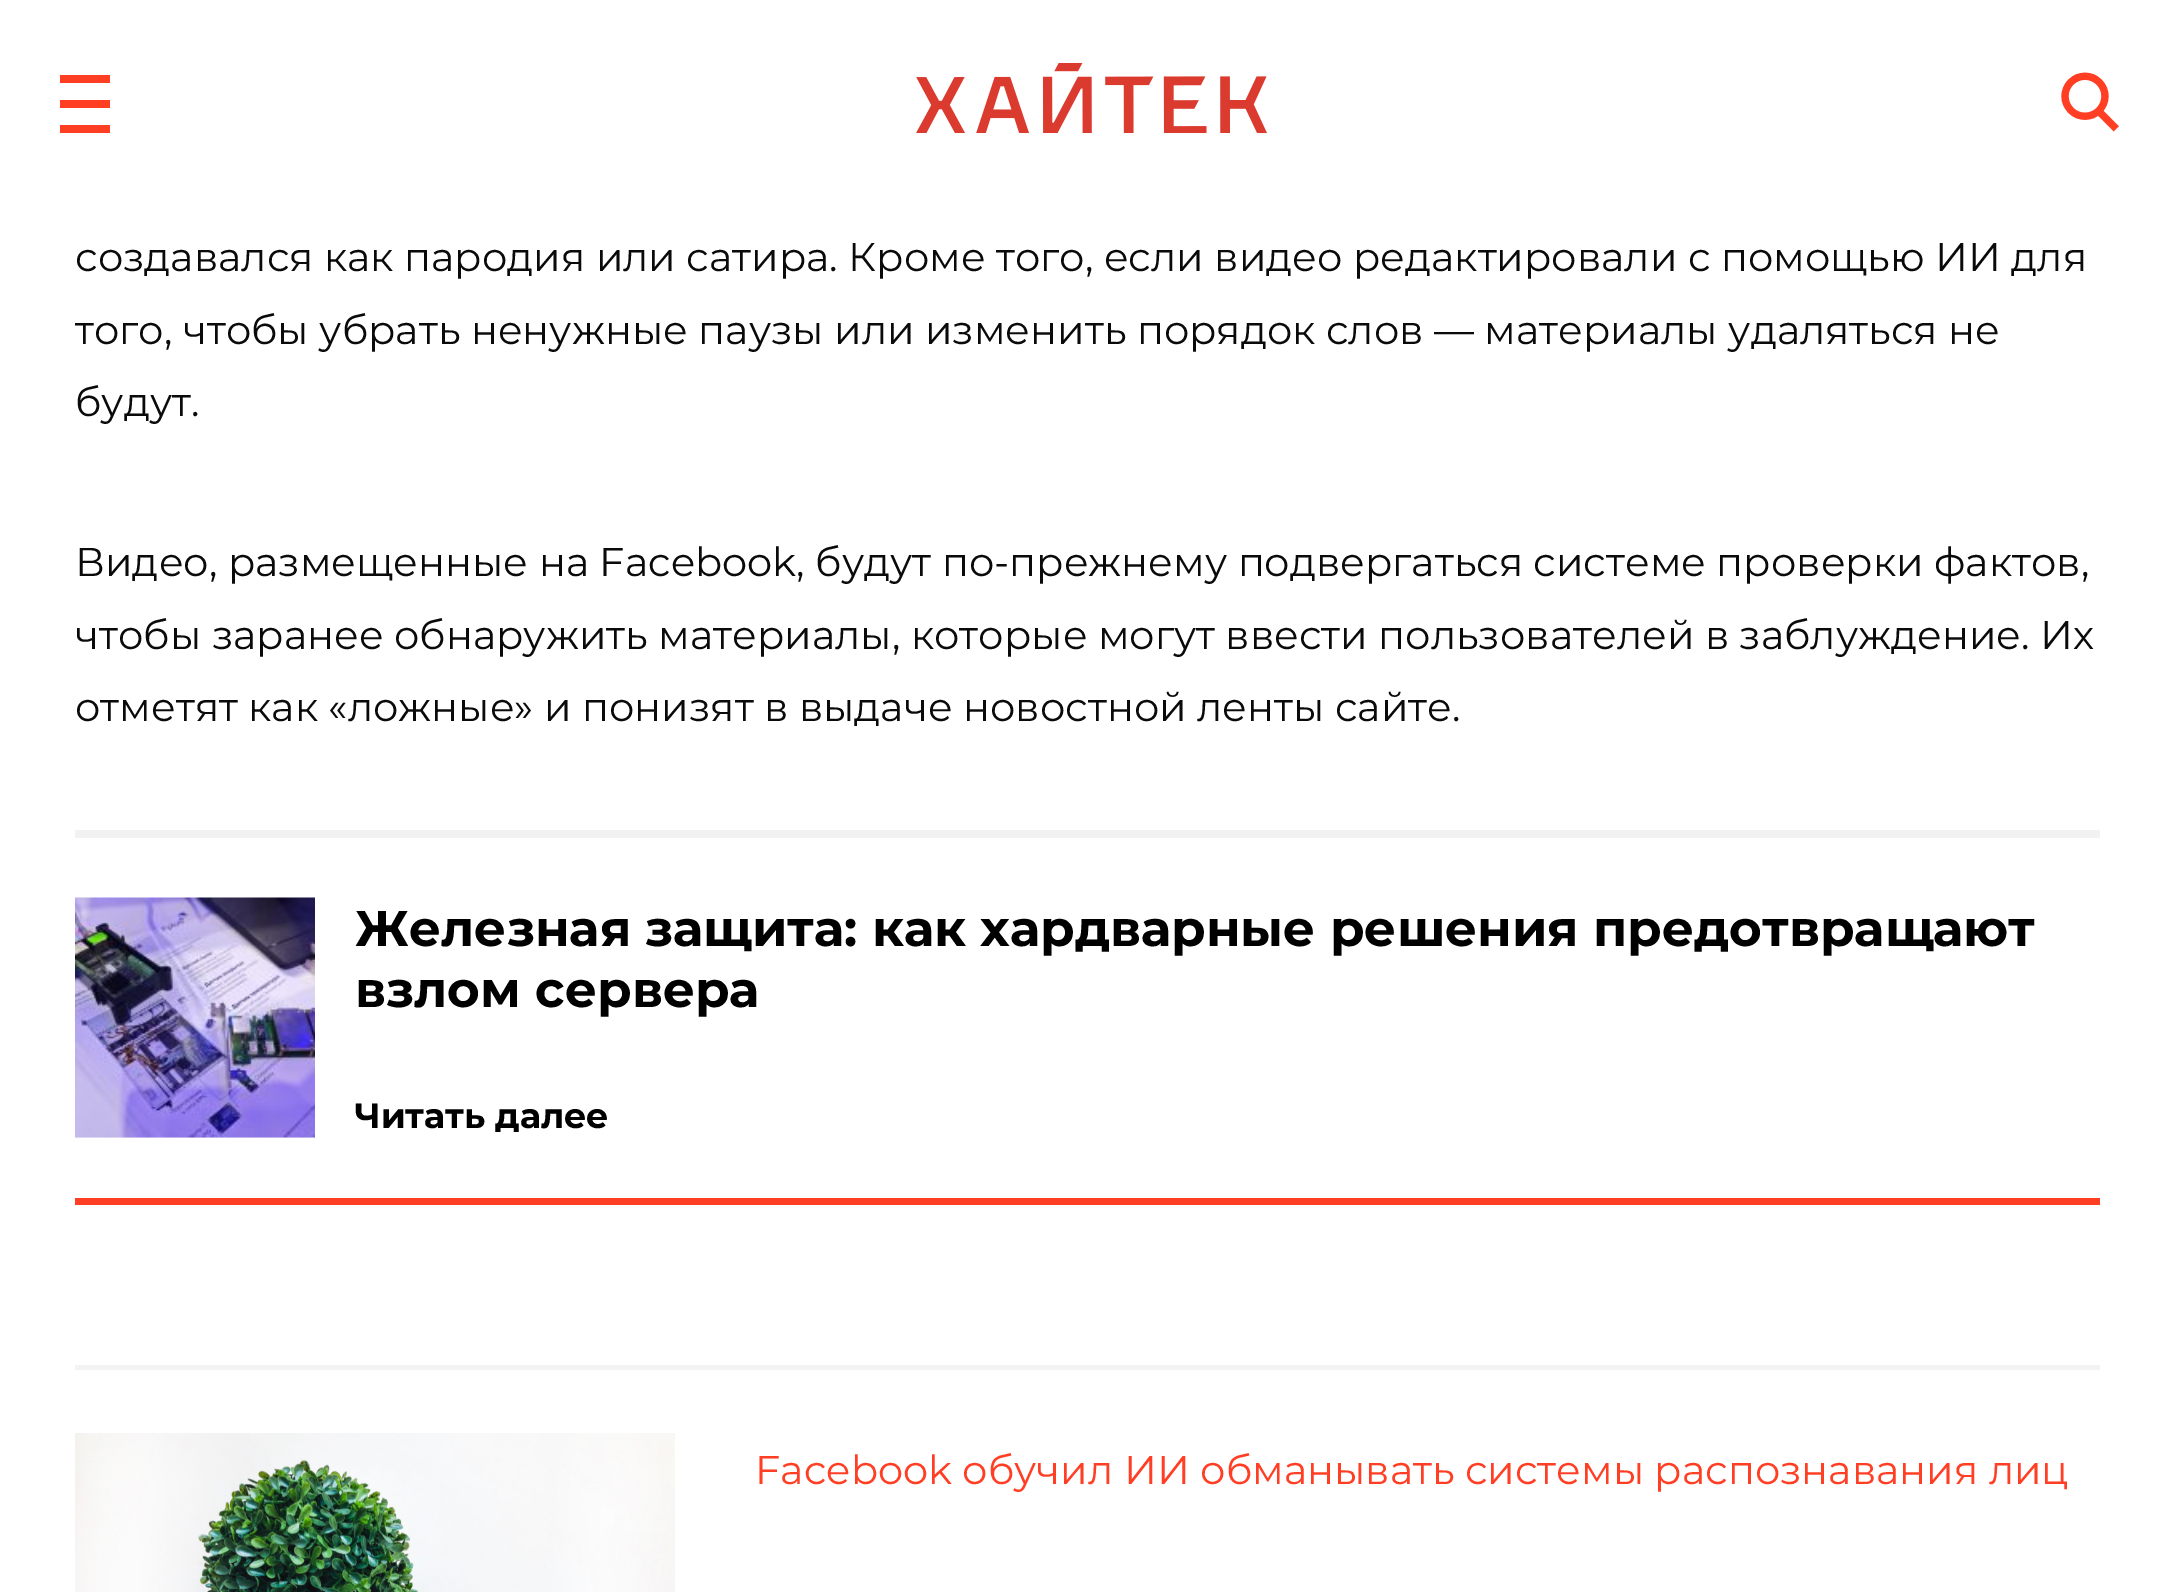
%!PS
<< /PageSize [2175 1592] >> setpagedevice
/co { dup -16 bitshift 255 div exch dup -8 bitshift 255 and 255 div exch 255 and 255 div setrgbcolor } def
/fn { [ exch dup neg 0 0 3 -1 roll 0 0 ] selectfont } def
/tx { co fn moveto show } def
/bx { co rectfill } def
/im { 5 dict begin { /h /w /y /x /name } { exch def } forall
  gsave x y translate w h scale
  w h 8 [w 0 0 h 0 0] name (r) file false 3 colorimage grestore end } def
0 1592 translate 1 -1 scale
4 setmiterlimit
0 0 2175 1592 16#FFFFFF bx
60 100 50 8 16#FF3E24 bx
60 75 50 8 16#FF3E24 bx
60 125 50 8 16#FF3E24 bx
(media/1.raw) 916 63 351 70 im
(media/2.raw) 2061 72 58 60 im
75 830 2025 8 16#F2F2F2 bx
75 1137 240 1 16#F2F2F2 bx
(media/3.raw) 75 897 240 241 im
75 1198 2025 7 16#FF3E24 bx
75 1365 2025 5 16#F3F3F3 bx
(media/4.raw) 75 1433 600 159 im
(создавался как пародия или сатира. Кроме того, если видео редактировали с помощью ИИ для) 75 271 /Montserrat-Regular 40 16#0A0A0A tx
(того, чтобы убрать ненужные паузы или изменить порядок слов — материалы удаляться не) 75 344 /Montserrat-Regular 40 16#0A0A0A tx
(будут.) 75 416 /Montserrat-Regular 40 16#0A0A0A tx
(Видео, размещенные на Facebook, будут по-прежнему подвергаться системе проверки фактов,) 75 576 /Montserrat-Regular 40 16#0A0A0A tx
(чтобы заранее обнаружить материалы, которые могут ввести пользователей в заблуждение. Их) 75 649 /Montserrat-Regular 40 16#0A0A0A tx
(отметят как «ложные» и понизят в выдаче новостной ленты сайте.) 75 721 /Montserrat-Regular 40 16#0A0A0A tx
(Железная защита: как хардварные решения предотвращают) 355 946 /Montserrat-Bold 50 16#000000 tx
(взлом сервера) 355 1007 /Montserrat-Bold 50 16#000000 tx
(Читать далее) 355 1128 /Montserrat-Bold 35 16#000000 tx
(Facebook обучил ИИ обманывать системы распознавания лиц) 755 1484 /Montserrat-Regular 40 16#FF3E24 tx
showpage
